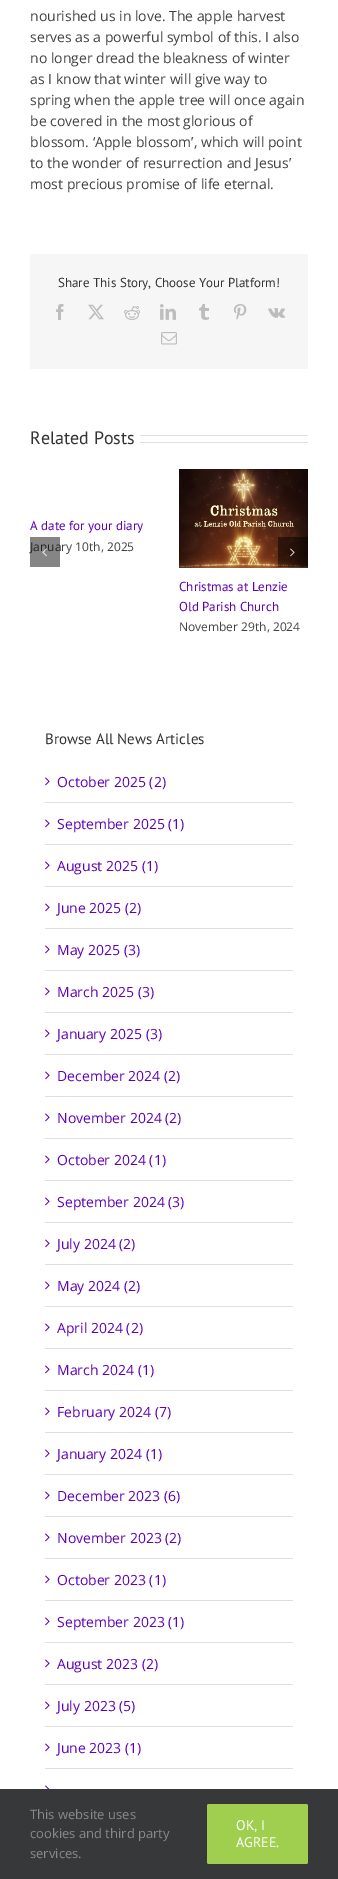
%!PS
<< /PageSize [338 1879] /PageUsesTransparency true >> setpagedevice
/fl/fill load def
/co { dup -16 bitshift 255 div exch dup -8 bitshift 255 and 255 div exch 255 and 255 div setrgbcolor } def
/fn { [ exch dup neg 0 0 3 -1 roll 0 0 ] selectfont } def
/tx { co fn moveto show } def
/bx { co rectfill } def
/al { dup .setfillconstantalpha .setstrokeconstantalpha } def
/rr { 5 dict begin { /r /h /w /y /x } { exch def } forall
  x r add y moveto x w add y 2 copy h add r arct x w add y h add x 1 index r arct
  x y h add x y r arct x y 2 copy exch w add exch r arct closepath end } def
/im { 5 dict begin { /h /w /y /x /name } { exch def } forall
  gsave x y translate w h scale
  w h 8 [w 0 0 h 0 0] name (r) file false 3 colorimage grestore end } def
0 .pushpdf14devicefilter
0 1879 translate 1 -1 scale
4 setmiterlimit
0 0 338 1879 16#FFFFFF bx
30 254 278 115 16#F6F6F6 bx
(media/1.raw) 56 304 8 16 im
(media/2.raw) 88 304 16 16 im
(media/3.raw) 124 306 16 14 im
(media/4.raw) 160 304 16 16 im
(media/5.raw) 199 304 10 16 im
(media/6.raw) 233 304 14 16 im
(media/7.raw) 268 308 17 10 im
(media/8.raw) 161 332 16 13 im
140 435 168 1 16#E0DEDE bx
140 442 168 1 16#E0DEDE bx
(media/9.raw) 179 469 129 99 im
0.48 al
278 537 30 30 16#000000 bx
1 al
(media/11.raw) 290 548 5 9 im
45 802 248 1 16#E0DEDE bx
(media/12.raw) 45 777 5 9 im
45 844 248 1 16#E0DEDE bx
(media/12.raw) 45 819 5 9 im
45 886 248 1 16#E0DEDE bx
(media/12.raw) 45 861 5 9 im
45 928 248 1 16#E0DEDE bx
(media/12.raw) 45 903 5 9 im
45 970 248 1 16#E0DEDE bx
(media/12.raw) 45 945 5 9 im
45 1012 248 1 16#E0DEDE bx
(media/12.raw) 45 987 5 9 im
45 1054 248 1 16#E0DEDE bx
(media/12.raw) 45 1029 5 9 im
45 1096 248 1 16#E0DEDE bx
(media/12.raw) 45 1071 5 9 im
45 1138 248 1 16#E0DEDE bx
(media/12.raw) 45 1113 5 9 im
45 1180 248 1 16#E0DEDE bx
(media/12.raw) 45 1155 5 9 im
45 1222 248 1 16#E0DEDE bx
(media/12.raw) 45 1197 5 9 im
45 1264 248 1 16#E0DEDE bx
(media/12.raw) 45 1239 5 9 im
45 1306 248 1 16#E0DEDE bx
(media/12.raw) 45 1281 5 9 im
45 1348 248 1 16#E0DEDE bx
(media/12.raw) 45 1323 5 9 im
45 1390 248 1 16#E0DEDE bx
(media/12.raw) 45 1365 5 9 im
45 1432 248 1 16#E0DEDE bx
(media/12.raw) 45 1407 5 9 im
45 1474 248 1 16#E0DEDE bx
(media/12.raw) 45 1449 5 9 im
45 1516 248 1 16#E0DEDE bx
(media/12.raw) 45 1491 5 9 im
45 1558 248 1 16#E0DEDE bx
(media/12.raw) 45 1533 5 9 im
45 1600 248 1 16#E0DEDE bx
(media/12.raw) 45 1575 5 9 im
45 1642 248 1 16#E0DEDE bx
(media/12.raw) 45 1617 5 9 im
45 1684 248 1 16#E0DEDE bx
(media/12.raw) 45 1659 5 9 im
45 1726 248 1 16#E0DEDE bx
(media/12.raw) 45 1701 5 9 im
45 1768 248 1 16#E0DEDE bx
(media/12.raw) 45 1743 5 9 im
(media/13.raw) 45 1785 5 4 im
0 1789 338 90 16#363839 bx
16#A0CE4E co
207 1804 101 60 2 rr fl
(nourished us in love. The apple harvest) 30 21 /OpenSans-Regular 14 16#424242 tx
(serves as a powerful symbol of this. I also) 30 42 /OpenSans-Regular 14 16#424242 tx
(no longer dread the bleakness of winter) 30 63 /OpenSans-Regular 14 16#424242 tx
(as I know that winter will give way to) 30 84 /OpenSans-Regular 14 16#424242 tx
(spring when the apple tree will once again) 30 105 /OpenSans-Regular 14 16#424242 tx
(be covered in the most glorious of) 30 126 /OpenSans-Regular 14 16#424242 tx
(blossom. ‘Apple blossom’, which will point) 30 147 /OpenSans-Regular 14 16#424242 tx
(to the wonder of resurrection and Jesus’) 30 168 /OpenSans-Regular 14 16#424242 tx
(most precious promise of life eternal.) 30 189 /OpenSans-Regular 14 16#424242 tx
(Share This Story, Choose Your Platform!) 58 287 /PTSans-Regular 13 16#333333 tx
(Related Posts) 30 444 /PTSans-Regular 18 16#333333 tx
(A date for your diary) 30 530 /PTSans-Regular 13 16#5E00B7 tx
(January 10th, 2025) 30 551 /OpenSans-Regular 12 16#424242 tx
(Christmas at Lenzie) 179 591 /PTSans-Regular 13 16#5E00B7 tx
(Old Parish Church) 179 611 /PTSans-Regular 13 16#5E00B7 tx
(November 29th, 2024) 179 631 /OpenSans-Regular 12 16#424242 tx
0.48 al
30 537 30 30 16#000000 bx
1 al
(media/10.raw) 42 548 5 9 im
(Browse All News Articles) 45 744 /PTSans-Regular 15 16#333333 tx
(October 2025 \(2\)) 57 787 /OpenSans-Regular 14 16#5E00B7 tx
(September 2025 \(1\)) 57 829 /OpenSans-Regular 14 16#5E00B7 tx
(August 2025 \(1\)) 57 871 /OpenSans-Regular 14 16#5E00B7 tx
(June 2025 \(2\)) 57 913 /OpenSans-Regular 14 16#5E00B7 tx
(May 2025 \(3\)) 57 955 /OpenSans-Regular 14 16#5E00B7 tx
(March 2025 \(3\)) 57 997 /OpenSans-Regular 14 16#5E00B7 tx
(January 2025 \(3\)) 57 1039 /OpenSans-Regular 14 16#5E00B7 tx
(December 2024 \(2\)) 57 1081 /OpenSans-Regular 14 16#5E00B7 tx
(November 2024 \(2\)) 57 1123 /OpenSans-Regular 14 16#5E00B7 tx
(October 2024 \(1\)) 57 1165 /OpenSans-Regular 14 16#5E00B7 tx
(September 2024 \(3\)) 57 1207 /OpenSans-Regular 14 16#5E00B7 tx
(July 2024 \(2\)) 57 1249 /OpenSans-Regular 14 16#5E00B7 tx
(May 2024 \(2\)) 57 1291 /OpenSans-Regular 14 16#5E00B7 tx
(April 2024 \(2\)) 57 1333 /OpenSans-Regular 14 16#5E00B7 tx
(March 2024 \(1\)) 57 1375 /OpenSans-Regular 14 16#5E00B7 tx
(February 2024 \(7\)) 57 1417 /OpenSans-Regular 14 16#5E00B7 tx
(January 2024 \(1\)) 57 1459 /OpenSans-Regular 14 16#5E00B7 tx
(December 2023 \(6\)) 57 1501 /OpenSans-Regular 14 16#5E00B7 tx
(November 2023 \(2\)) 57 1543 /OpenSans-Regular 14 16#5E00B7 tx
(October 2023 \(1\)) 57 1585 /OpenSans-Regular 14 16#5E00B7 tx
(September 2023 \(1\)) 57 1627 /OpenSans-Regular 14 16#5E00B7 tx
(August 2023 \(2\)) 57 1669 /OpenSans-Regular 14 16#5E00B7 tx
(July 2023 \(5\)) 57 1711 /OpenSans-Regular 14 16#5E00B7 tx
(June 2023 \(1\)) 57 1753 /OpenSans-Regular 14 16#5E00B7 tx
(This website uses) 30 1819 /OpenSans-Regular 13 16#8C8989 tx
(cookies and third party) 30 1838 /OpenSans-Regular 13 16#8C8989 tx
(services.) 30 1858 /OpenSans-Regular 13 16#8C8989 tx
(OK, I) 236 1830 /PTSans-Regular 14 16#FFFFFF tx
(AGREE.) 236 1847 /PTSans-Regular 14 16#FFFFFF tx
.poppdf14devicefilter showpage
